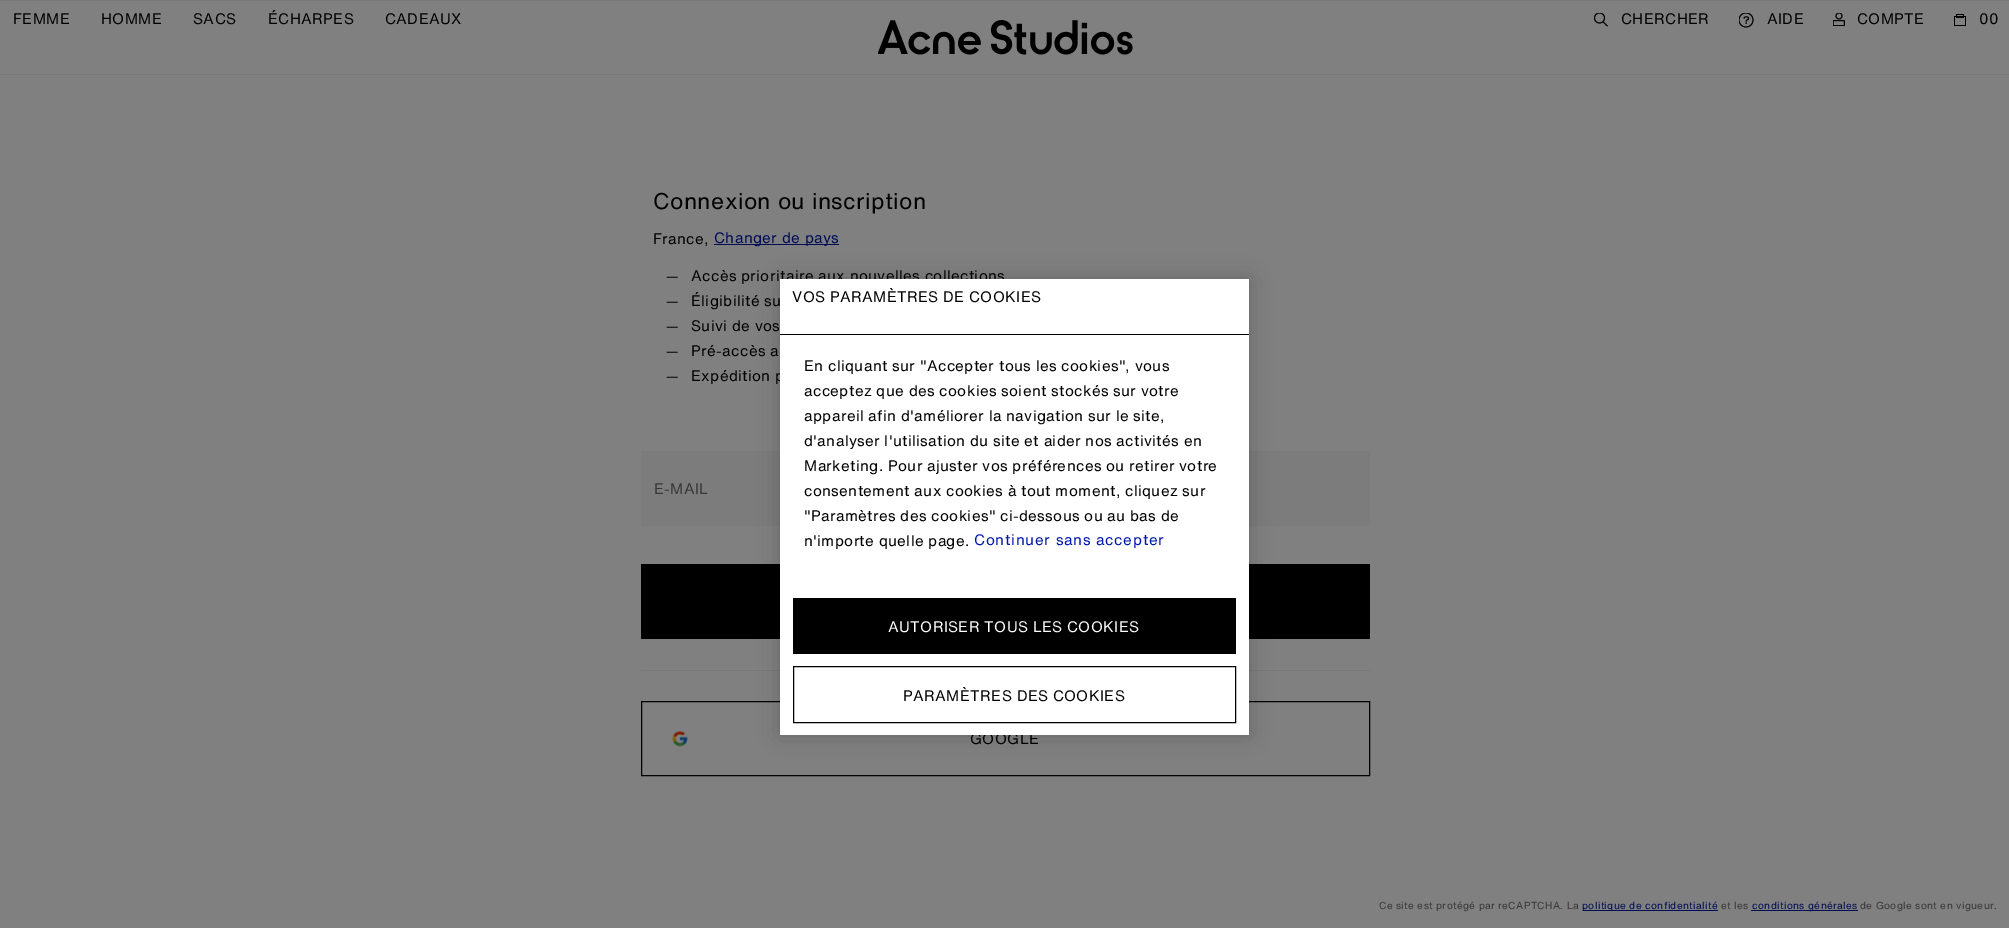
%!PS
<< /PageSize [2009 928] /PageUsesTransparency true >> setpagedevice
/mt/moveto load def
/co { dup -16 bitshift 255 div exch dup -8 bitshift 255 and 255 div exch 255 and 255 div setrgbcolor } def
/fn { [ exch dup neg 0 0 3 -1 roll 0 0 ] selectfont } def
/bx { co rectfill } def
/al { dup .setfillconstantalpha .setstrokeconstantalpha } def
/rr { 5 dict begin { /r /h /w /y /x } { exch def } forall
  x r add y moveto x w add y 2 copy h add r arct x w add y h add x 1 index r arct
  x y h add x y r arct x y 2 copy exch w add exch r arct closepath end } def
/sh { 12 dict begin { /a /b /q /h /w /y /x } { exch def } forall gsave /was 0 def
  9 -2 -9 { dup b mul 4 div /e exch def 1 sub .425 mul 2.718 exch exp 1 add a .99 .min exch div /now exch def
    1 1 now sub 1 was sub div sub al /was now def
    w h .min e 2 mul add 0 gt { x e sub y e sub w e 2 mul add h e 2 mul add
      q e add b .6 mul add w h .min 2 div e add .min 0 .max rr fill } if } for grestore end } def
/im { 5 dict begin { /h /w /y /x /name } { exch def } forall
  gsave x y translate w h scale
  w h 8 [w 0 0 h 0 0] name (r) file false 3 colorimage grestore end } def
0 .pushpdf14devicefilter
0 928 translate 1 -1 scale
4 setmiterlimit
0 0 2009 928 16#808080 bx
0 74 2009 1 16#797979 bx
0 0 2009 1 16#797979 bx
(media/1.raw) 878 20 255 35 im
(media/2.raw) 1594 13 14 14 im
(media/3.raw) 1739 13 15 15 im
(media/4.raw) 1833 13 12 13 im
(media/5.raw) 1954 14 12 12 im
714 244 125 1 16#000C54 bx
641 451 729 75 16#7C7C7C bx
641 564 729 75 16#000000 bx
1583 910 135 1 16#000C54 bx
1751 910 107 1 16#000C54 bx
641 670 729 1 16#797979 bx
16#000000 co
641.5 701.5 728 74 rectstroke
(media/6.raw) 672 731 16 16 im
780 279 469 456 0 11 .2 sh
/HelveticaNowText-Regular 15 fn
13 24 mt .38 0 (FEMME) ashow
101 24 mt .38 0 (HOMME) ashow
193 24 mt .38 0 (SACS) ashow
268 24 mt .38 0 (ÉCHARPES) ashow
385 24 mt .38 0 (CADEAUX) ashow
1621 24 mt .38 0 (CHERCHER) ashow
1767 24 mt .38 0 (AIDE) ashow
1857 24 mt .38 0 (COMPTE) ashow
1979 24 mt .38 0 (00) ashow
/HelveticaNowText-Regular 22.5 fn
653 209 mt .38 0 (Connexion ou inscription) ashow
/HelveticaNowText-Regular 15 fn
653 244 mt .38 0 (France,) ashow
16#000C54 co
714 243 mt .38 0 (Changer de pays) ashow
16#000000 co
666 281 mt .38 0 (—) ashow
691 281 mt .38 0 (Accès prioritaire aux nouvelles collections) ashow
666 306 mt .38 0 (—) ashow
691 306 mt .38 0 (Éligibilité su) ashow
666 331 mt .38 0 (—) ashow
691 331 mt .38 0 (Suivi de vos) ashow
666 356 mt .38 0 (—) ashow
691 356 mt .38 0 (Pré-accès a) ashow
666 381 mt .38 0 (—) ashow
691 381 mt .38 0 (Expédition p) ashow
16#363636 co
654 494 mt .38 0 (E-MAIL) ashow
/HelveticaNowText-Regular 10 fn
1379 909 mt .38 0 (Ce site est protégé par reCAPTCHA. La) ashow
16#000C54 co
1582 909 mt .38 0 (politique de confidentialité) ashow
16#363636 co
1721 909 mt .38 0 (et les) ashow
16#000C54 co
1752 909 mt .38 0 (conditions générales) ashow
16#363636 co
1860 909 mt .38 0 (de Google sont en vigueur.) ashow
/HelveticaNowText-Regular 15 fn
16#000000 co
970 744 mt .38 0 (GOOGLE) ashow
780 279 469 456 16#FFFFFF bx
780 334 469 1 16#000000 bx
792 302 mt .38 0 (VOS PARAMÈTRES DE COOKIES) ashow
804 371 mt .38 0 (En cliquant sur "Accepter tous les cookies", vous) ashow
804 396 mt .38 0 (acceptez que des cookies soient stockés sur votre) ashow
804 421 mt .38 0 (appareil afin d'améliorer la navigation sur le site,) ashow
804 446 mt .38 0 (d'analyser l'utilisation du site et aider nos activités en) ashow
804 471 mt .38 0 (Marketing. Pour ajuster vos préférences ou retirer votre) ashow
804 496 mt .38 0 (consentement aux cookies à tout moment, cliquez sur) ashow
804 521 mt .38 0 ("Paramètres des cookies" ci-dessous ou au bas de) ashow
804 546 mt .38 0 (n'importe quelle page.) ashow
16#0018A8 co
974 545 mt .75 0 (Continuer sans accepter) ashow
793 598 443 56 16#000000 bx
16#FFFFFF co
888 632 mt .38 0 (AUTORISER TOUS LES COOKIES) ashow
16#000000 co
793.5 666.5 442 56 rectstroke
903 701 mt .38 0 (PARAMÈTRES DES COOKIES) ashow
.poppdf14devicefilter showpage
